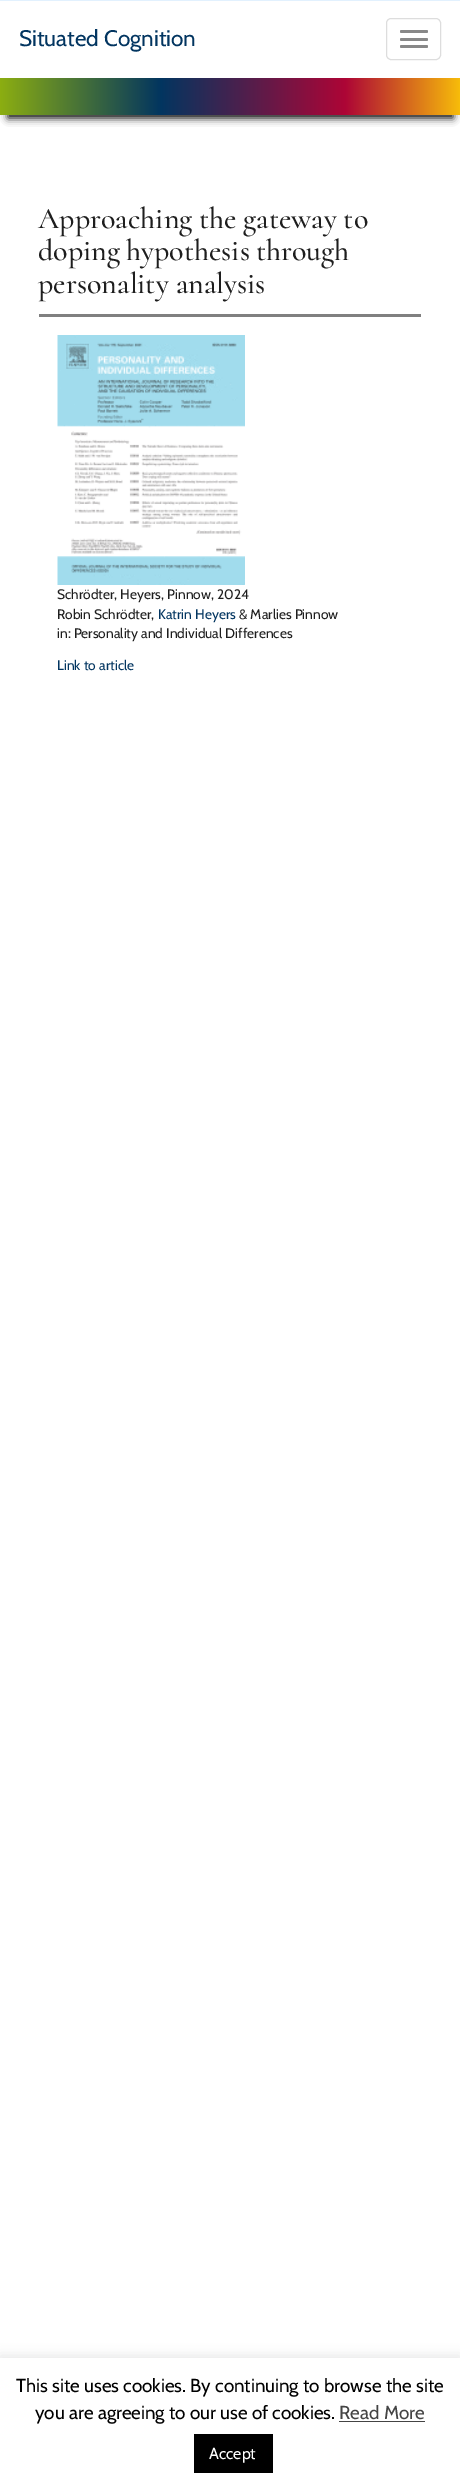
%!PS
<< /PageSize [460 2487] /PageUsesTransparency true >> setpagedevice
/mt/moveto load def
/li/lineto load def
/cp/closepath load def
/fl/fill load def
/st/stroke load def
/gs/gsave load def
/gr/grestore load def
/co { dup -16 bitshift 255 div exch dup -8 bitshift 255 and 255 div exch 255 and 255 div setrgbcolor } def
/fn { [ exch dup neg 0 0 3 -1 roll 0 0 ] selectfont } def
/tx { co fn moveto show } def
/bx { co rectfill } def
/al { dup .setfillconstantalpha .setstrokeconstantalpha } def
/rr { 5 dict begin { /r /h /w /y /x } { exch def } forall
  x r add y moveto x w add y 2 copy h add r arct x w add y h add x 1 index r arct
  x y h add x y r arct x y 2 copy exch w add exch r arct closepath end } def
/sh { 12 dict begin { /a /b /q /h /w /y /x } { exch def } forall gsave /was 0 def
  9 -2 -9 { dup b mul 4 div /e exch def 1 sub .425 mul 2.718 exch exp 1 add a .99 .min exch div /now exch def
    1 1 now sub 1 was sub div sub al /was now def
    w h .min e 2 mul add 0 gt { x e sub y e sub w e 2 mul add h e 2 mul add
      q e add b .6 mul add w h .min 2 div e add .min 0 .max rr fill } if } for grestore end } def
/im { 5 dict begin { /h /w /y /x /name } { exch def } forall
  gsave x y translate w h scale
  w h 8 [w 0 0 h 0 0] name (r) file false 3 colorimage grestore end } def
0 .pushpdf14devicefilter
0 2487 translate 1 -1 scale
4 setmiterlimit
0 0 460 2487 16#FFFFFF bx
0 0 460 1 16#E2F1FE bx
16#DDDDDD co
386.5 18.5 54 41 4.5 rr st
16#888888 co
400 30 28 3 1.5 rr fl
400 38 28 3 1.5 rr fl
400 45 28 3 1.5 rr fl
16#000000 co
8 95 445 23 0 4 1 sh
gs 0 78 mt 460 78 li 460 115 li 0 115 li cp clip newpath
<< /ShadingType 2 /ColorSpace /DeviceRGB /Coords [0 96 460 96] /Extend [true true] /Function << /FunctionType 3 /Domain [0 1] /Functions [<< /FunctionType 2 /Domain [0 1] /C0 [.549 .682 .067] /C1 [.008 .208 .376] /N 1 >> << /FunctionType 2 /Domain [0 1] /C0 [.008 .208 .376] /C1 [.678 .02 .212] /N 1 >> << /FunctionType 2 /Domain [0 1] /C0 [.678 .02 .212] /C1 [.969 .737 .039] /N 1 >>] /Bounds [.35 .75] /Encode [0 1 0 1 0 1] >> >> shfill gr
39 314 382 3 16#808080 bx
(media/1.raw) 57 335 188 250 im
16#ACABAB co
0 2356 460 130 0 6 .3 sh
0 2358 460 129 16#FFFFFF bx
339 2421 86 1 16#444444 bx
194 2434 79 39 16#000000 bx
(Situated Cognition) 19 46 /Cabin-Regular 22.5 16#023560 tx
/Cormorant-Medium 30 fn
16#1E1E1E co
38 228 mt -.5 0 32 (Approaching the gateway to) widthshow
38 260 mt -1 0 32 (doping hypothesis through) widthshow
(personality analysis) 38 293 /Cormorant-Medium 30 16#1E1E1E tx
(Schrödter, Heyers, Pinnow, 2024) 57 599 /Cabin-Regular 13.75 16#1E1E1E tx
(Robin Schrödter,) 57 619 /Cabin-Regular 13.75 16#1E1E1E tx
(Katrin Heyers) 158 619 /Cabin-Regular 13.75 16#023560 tx
(& Marlies Pinnow) 239 619 /Cabin-Regular 13.75 16#1E1E1E tx
(in: Personality and Individual Differences) 57 638 /Cabin-Regular 13.75 16#1E1E1E tx
(Link to article) 57 670 /Cabin-Regular 13.75 16#023560 tx
(This site uses cookies. By continuing to browse the site) 16 2392 /Cabin-Regular 18.75 16#000000 tx
(you are agreeing to our use of cookies.) 35 2419 /Cabin-Regular 18.75 16#000000 tx
(Read More) 339 2419 /Cabin-Regular 18.75 16#444444 tx
(Accept) 209 2459 /Cabin-Regular 16 16#FFFFFF tx
.poppdf14devicefilter showpage
